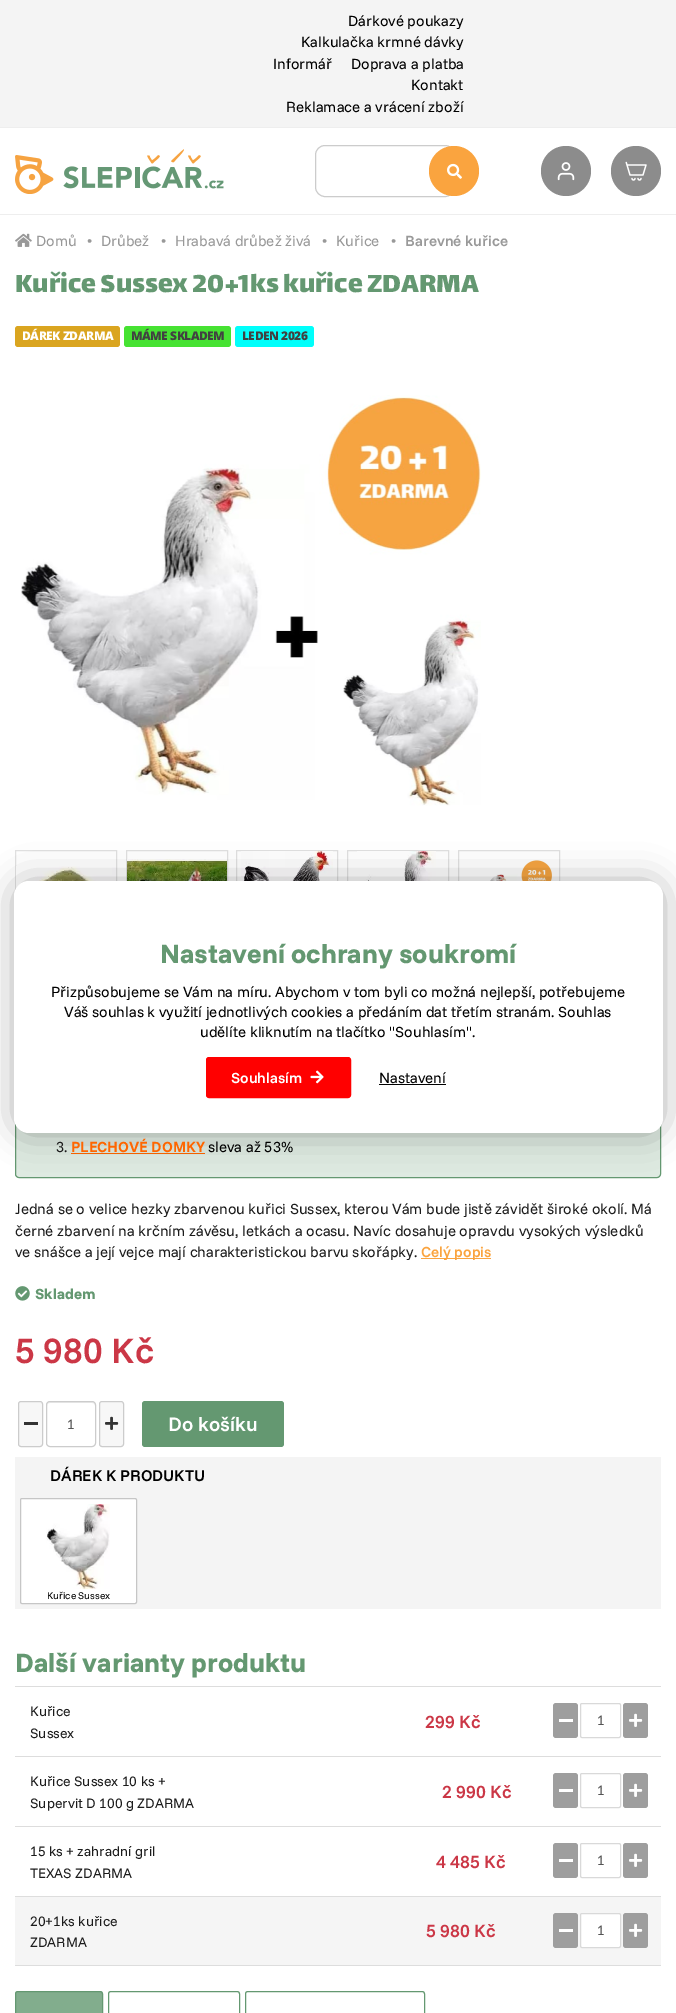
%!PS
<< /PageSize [676 2013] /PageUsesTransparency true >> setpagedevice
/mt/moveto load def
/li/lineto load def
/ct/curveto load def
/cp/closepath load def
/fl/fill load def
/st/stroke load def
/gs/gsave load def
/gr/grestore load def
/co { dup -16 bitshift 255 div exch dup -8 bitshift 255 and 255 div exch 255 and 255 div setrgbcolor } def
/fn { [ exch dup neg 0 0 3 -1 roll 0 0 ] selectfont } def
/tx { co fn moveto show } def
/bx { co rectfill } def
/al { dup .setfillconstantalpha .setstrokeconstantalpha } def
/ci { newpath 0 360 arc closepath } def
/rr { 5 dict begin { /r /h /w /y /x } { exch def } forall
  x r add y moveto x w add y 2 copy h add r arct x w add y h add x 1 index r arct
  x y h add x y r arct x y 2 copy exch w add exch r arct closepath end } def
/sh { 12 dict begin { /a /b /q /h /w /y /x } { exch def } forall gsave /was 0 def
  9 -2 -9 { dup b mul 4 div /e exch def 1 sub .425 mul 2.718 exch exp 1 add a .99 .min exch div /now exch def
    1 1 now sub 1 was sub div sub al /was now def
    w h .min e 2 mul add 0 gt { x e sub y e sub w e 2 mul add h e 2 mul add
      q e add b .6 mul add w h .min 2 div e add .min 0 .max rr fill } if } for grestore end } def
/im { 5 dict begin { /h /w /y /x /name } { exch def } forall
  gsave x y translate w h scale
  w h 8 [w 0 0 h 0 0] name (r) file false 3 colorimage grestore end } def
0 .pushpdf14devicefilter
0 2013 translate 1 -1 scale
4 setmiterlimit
0 0 676 2013 16#FFFFFF bx
0 0 676 127 16#F4F4F4 bx
0 127 676 1 16#EEEEEE bx
0 214 676 1 16#EEEEEE bx
(media/1.raw) 15 149 209 45 im
16#CCCCCC co
315.5 145.5 139 51 9.5 rr st
16#FAA43F co
454 171 25 ci fl
(media/2.raw) 447 163 15 16 im
16#8C8C8C co
566 171 25 ci fl
(media/3.raw) 557 162 18 19 im
636 171 25 ci fl
(media/4.raw) 625 161 22 20 im
(media/5.raw) 15 233 17 14 im
16#DAA520 co
15 326 105 21 3 rr fl
16#46E232 co
124 326 107 21 3 rr fl
16#00FFFB co
235 326 79 21 3 rr fl
(media/6.raw) 21 395 460 411 im
16#E1E1E1 co
15.5 850.5 101 101 rectstroke
(media/7.raw) 16 866 100 23 im
126.5 850.5 101 101 rectstroke
(media/8.raw) 127 859 100 22 im
236.5 850.5 101 101 rectstroke
(media/9.raw) 241 851 92 30 im
347.5 850.5 101 101 rectstroke
(media/10.raw) 357 851 79 30 im
458.5 850.5 101 101 rectstroke
(media/11.raw) 460 860 92 21 im
16#DEEAE1 co
15.5 1072.5 645 105 3.5 rr gs fl gr
16#649871 co
st
71 1153 134 1 16#FF6600 bx
421 1258 70 1 16#FAA43F bx
(media/12.raw) 15 1286 15 15 im
16#F7F7F7 co
18.5 1401.5 24 45 2.5 rr gs fl gr
16#CCCCCC co
st
24 1422 14 3 16#333333 bx
16#ECECEC co
50 1403 mt 92 1403 li 94 1403 95 1404 95 1406 ct 95 1400 89 1402 85 1402 ct 57 1402 li 53 1402 47 1400 47 1406 ct 47 1404 48 1403 50 1403 ct cp fl
16#CCCCCC co
46.5 1401.5 49 45 3.5 rr st
16#F7F7F7 co
99.5 1401.5 24 45 2.5 rr gs fl gr
16#CCCCCC co
st
(media/13.raw) 105 1416 14 14 im
16#649871 co
142 1401 142 46 3 rr fl
15 1457 646 152 16#F4F4F4 bx
16#FFFFFF co
20.5 1498.5 116 105 1.5 rr gs fl gr
16#C6C6C6 co
st
(media/14.raw) 46 1504 64 85 im
15 1686 646 1 16#DDDDDD bx
16#9E9E9E co
553 1703 25 35 3 rr fl
559 1719 14 3 16#FFFFFF bx
16#D9D9D9 co
580.5 1703.5 40 34 1.5 rr st
16#9E9E9E co
623 1703 25 35 3 rr fl
(media/15.raw) 629 1713 14 14 im
15 1756 646 1 16#DDDDDD bx
16#9E9E9E co
553 1773 25 35 3 rr fl
559 1789 14 3 16#FFFFFF bx
16#D9D9D9 co
580.5 1773.5 40 34 1.5 rr st
16#9E9E9E co
623 1773 25 35 3 rr fl
(media/15.raw) 629 1783 14 14 im
15 1826 646 1 16#DDDDDD bx
16#9E9E9E co
553 1843 25 35 3 rr fl
559 1859 14 3 16#FFFFFF bx
16#D9D9D9 co
580.5 1843.5 40 34 1.5 rr st
16#9E9E9E co
623 1843 25 35 3 rr fl
(media/15.raw) 629 1853 14 14 im
15 1897 646 68 16#F5F5F5 bx
15 1896 646 1 16#DDDDDD bx
15 1965 646 1 16#DDDDDD bx
16#9E9E9E co
553 1913 25 35 3 rr fl
559 1929 14 3 16#FFFFFF bx
580.5 1913.5 40 34 1.5 rr gs fl gr
16#D9D9D9 co
st
16#9E9E9E co
623 1913 25 35 3 rr fl
(media/15.raw) 629 1923 14 14 im
16#82AD8D co
18 1991.5 mt 100 1991.5 li 101.5 1991.5 102.5 1992.5 102.5 1994 ct 102.5 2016.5 li 15.5 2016.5 li 15.5 1994 li 15.5 1992.5 16.5 1991.5 18 1991.5 ct cp gs fl gr
16#649871 co
st
111 1991.5 mt 237 1991.5 li 238.5 1991.5 239.5 1992.5 239.5 1994 ct 239.5 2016.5 li 108.5 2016.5 li 108.5 1994 li 108.5 1992.5 109.5 1991.5 111 1991.5 ct cp st
248 1991.5 mt 422 1991.5 li 423.5 1991.5 424.5 1992.5 424.5 1994 ct 424.5 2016.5 li 245.5 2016.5 li 245.5 1994 li 245.5 1992.5 246.5 1991.5 248 1991.5 ct cp st
16#000000 co
14 881 649 252 15 17.5 .3 sh
16#FFFFFF co
14 881 649 252 15 rr fl
16#FF0000 co
206.5 1057.5 144 40 2.5 rr gs fl gr
st
(media/16.raw) 310 1070 14 14 im
379 1084 67 1 16#000000 bx
(Dárkové poukazy) 348 26 /FunnelSans-Regular 15 16#000000 tx
(Kalkulačka krmné dávky) 301 47 /FunnelSans-Regular 15 16#000000 tx
(Informář) 273 69 /FunnelSans-Regular 15 16#000000 tx
(Doprava a platba) 351 69 /FunnelSans-Regular 15 16#000000 tx
(Kontakt) 411 90 /FunnelSans-Regular 15 16#000000 tx
(Reklamace a vrácení zboží) 286 112 /FunnelSans-Regular 15 16#000000 tx
(Domů) 36 246 /FunnelSans-Regular 15 16#999999 tx
(•) 87 246 /FunnelSans-Regular 15 16#999999 tx
(Drůbež) 101 246 /FunnelSans-Regular 15 16#999999 tx
(•) 161 246 /FunnelSans-Regular 15 16#999999 tx
(Hrabavá drůbež živá) 175 246 /FunnelSans-Regular 15 16#999999 tx
(•) 322 246 /FunnelSans-Regular 15 16#999999 tx
(Kuřice) 336 246 /FunnelSans-Regular 15 16#999999 tx
(•) 391 246 /FunnelSans-Regular 15 16#999999 tx
(Barevné kuřice) 405 246 /FunnelSans-SemiBold 15 16#999999 tx
(Kuřice Sussex 20+1ks kuřice ZDARMA) 15 292 /Lalezar-Regular 30 16#649871 tx
/OpenSans-ExtraBold 12 fn
16#FFFFFF co
22 340 mt -.5 0 (DÁREK ZDARMA) ashow
16#414141 co
131 340 mt -.5 0 (MÁME SKLADEM) ashow
242 340 mt -.5 0 (LEDEN 2026) ashow
(3.) 56 1152 /FunnelSans-Regular 15 16#1C1C1C tx
(PLECHOVÉ DOMKY) 71 1152 /FunnelSans-Bold 15 16#FF6600 tx
(sleva až 53%) 208 1152 /FunnelSans-Regular 15 16#000000 tx
(Jedná se o velice hezky zbarvenou kuřici Sussex, kterou Vám bude jistě závidět široké okolí. Má) 15 1214 /FunnelSans-Regular 15 16#1C1C1C tx
(černé zbarvení na krčním závěsu, letkách a ocasu. Navíc dosahuje opravdu vysokých výsledků) 15 1236 /FunnelSans-Regular 15 16#1C1C1C tx
(ve snášce a její vejce mají charakteristickou barvu skořápky.) 15 1257 /FunnelSans-Regular 15 16#1C1C1C tx
(Celý popis) 421 1257 /FunnelSans-SemiBold 15 16#FAA43F tx
(Skladem) 35 1299 /FunnelSans-ExtraBold 15 16#649871 tx
(5 980 Kč) 15 1363 /FunnelSans-SemiBold 36 16#CB3746 tx
(1) 67 1429 /FunnelSans-Regular 14 16#555555 tx
(Do košíku) 168 1431 /FunnelSans-SemiBold 20 16#FFFFFF tx
(DÁREK K PRODUKTU) 50 1481 /FunnelSans-SemiBold 16 16#000000 tx
(Kuřice Sussex) 47 1599 /FunnelSans-Regular 10 16#000000 tx
(Další varianty produktu) 15 1672 /FunnelSans-ExtraBold 27 16#649871 tx
(Kuřice) 30 1716 /FunnelSans-Regular 14 16#1C1C1C tx
(Sussex) 30 1738 /FunnelSans-Regular 14 16#1C1C1C tx
(299 Kč) 425 1728 /FunnelSans-SemiBold 18 16#CB3746 tx
(1) 597 1725 /FunnelSans-Regular 14 16#555555 tx
(Kuřice Sussex 10 ks +) 30 1786 /FunnelSans-Regular 14 16#1C1C1C tx
(Supervit D 100 g ZDARMA) 30 1808 /FunnelSans-Regular 14 16#1C1C1C tx
(2 990 Kč) 442 1798 /FunnelSans-SemiBold 18 16#CB3746 tx
(1) 597 1795 /FunnelSans-Regular 14 16#555555 tx
(15 ks + zahradní gril) 30 1856 /FunnelSans-Regular 14 16#1C1C1C tx
(TEXAS ZDARMA) 30 1878 /FunnelSans-Regular 14 16#1C1C1C tx
(4 485 Kč) 436 1868 /FunnelSans-SemiBold 18 16#CB3746 tx
(1) 597 1865 /FunnelSans-Regular 14 16#555555 tx
(20+1ks kuřice) 30 1926 /FunnelSans-Regular 14 16#1C1C1C tx
(ZDARMA) 30 1947 /FunnelSans-Regular 14 16#1C1C1C tx
(5 980 Kč) 426 1937 /FunnelSans-SemiBold 18 16#CB3746 tx
(1) 597 1935 /FunnelSans-Regular 14 16#555555 tx
(Nastavení ochrany soukromí) 160 963 /FunnelSans-ExtraBold 27 16#649871 tx
(Přizpůsobujeme se Vám na míru. Abychom v tom byli co možná nejlepší, potřebujeme) 51 997 /FunnelSans-Regular 15 16#000000 tx
(Váš souhlas k využití jednotlivých cookies a předáním dat třetím stranám. Souhlas) 64 1017 /FunnelSans-Regular 15 16#000000 tx
(udělíte kliknutím na tlačítko "Souhlasím".) 200 1037 /FunnelSans-Regular 15 16#000000 tx
(Souhlasím) 231 1083 /FunnelSans-SemiBold 15 16#FFFFFF tx
(Nastavení) 379 1083 /FunnelSans-Regular 15 16#000000 tx
.poppdf14devicefilter showpage
